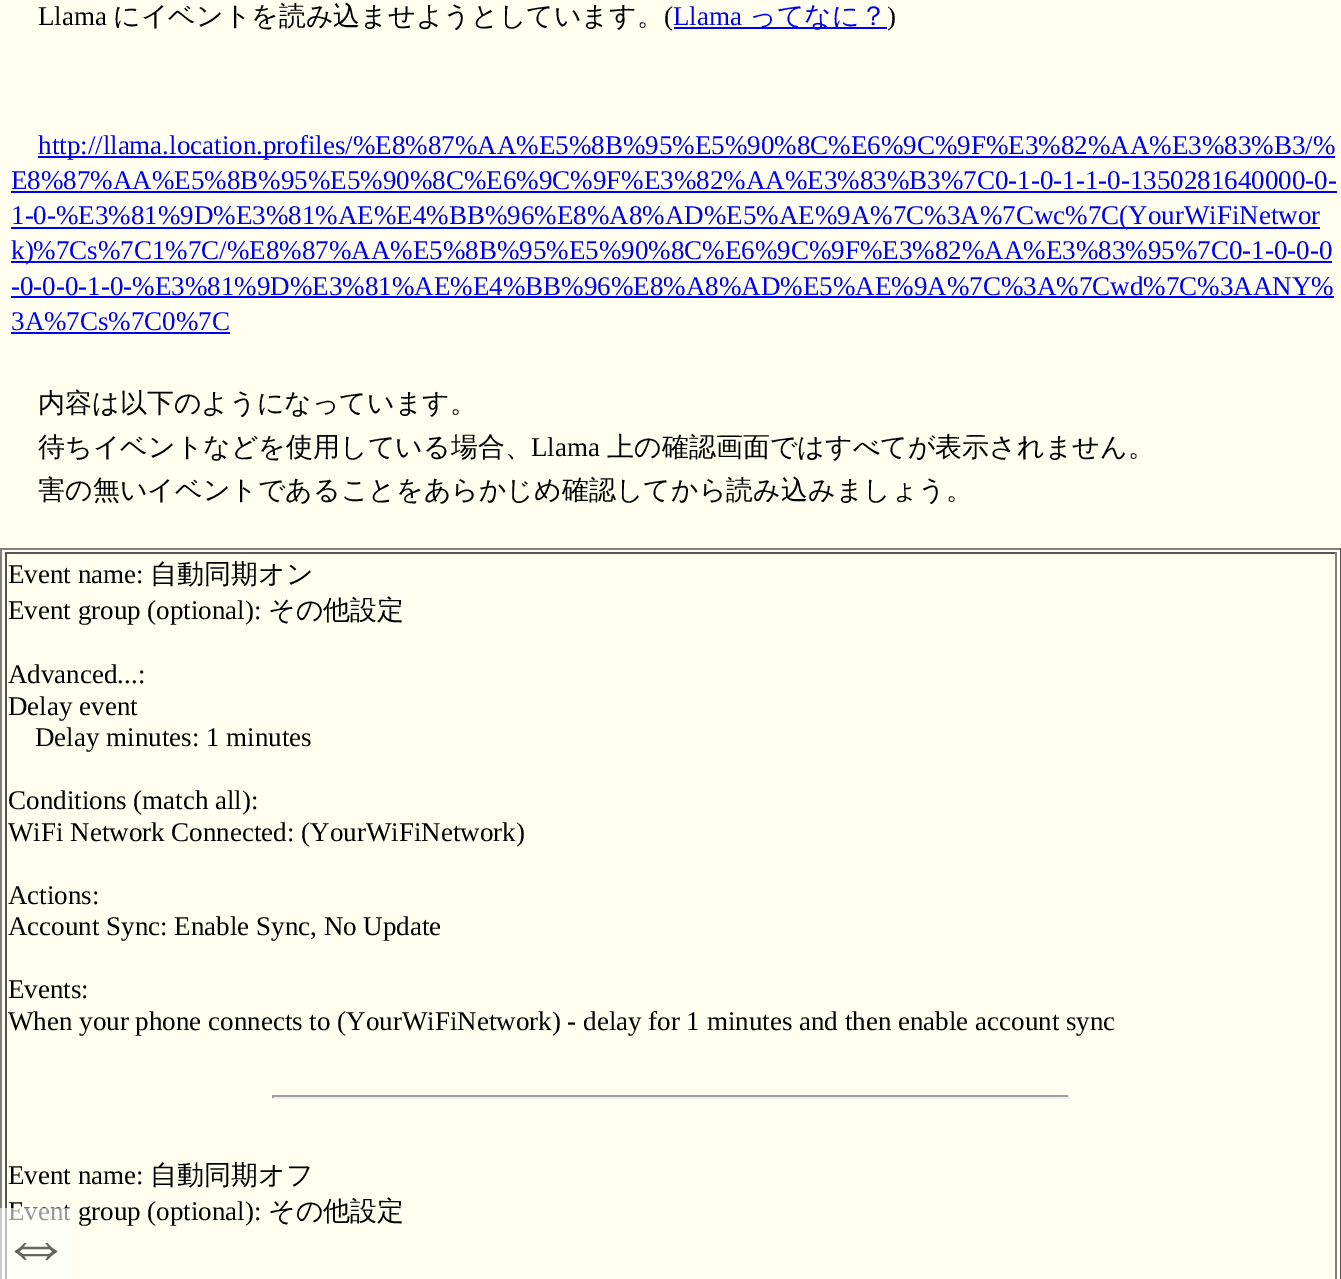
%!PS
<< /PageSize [1341 1279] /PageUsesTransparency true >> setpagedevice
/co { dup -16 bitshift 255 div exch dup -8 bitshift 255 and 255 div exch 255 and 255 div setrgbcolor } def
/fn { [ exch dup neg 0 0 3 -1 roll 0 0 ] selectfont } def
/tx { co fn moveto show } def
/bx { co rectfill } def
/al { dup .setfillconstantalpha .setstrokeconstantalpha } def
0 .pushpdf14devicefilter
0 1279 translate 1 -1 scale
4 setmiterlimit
0 0 1341 1279 16#FFFFF0 bx
674 27 213 2 16#0000EE bx
38 156 1297 2 16#0000EE bx
11 191 1326 2 16#0000EE bx
11 227 1309 2 16#0000EE bx
11 261 1321 2 16#0000EE bx
11 296 1323 2 16#0000EE bx
11 332 219 2 16#0000EE bx
0 548 1341 2 16#808080 bx
1340 548 1 731 16#555555 bx
0 548 2 731 16#808080 bx
5 552 1332 2 16#555555 bx
1335 552 2 727 16#808080 bx
5 552 2 727 16#555555 bx
272 1095 798 2 16#9F9F9F bx
1068 1095 2 3 16#EEEEEE bx
272 1097 798 2 16#EEEEEE bx
272 1095 2 3 16#9F9F9F bx
(Llama) 38 25 /LiberationSerif-Regular 27 16#000000 tx
(にイベントを読み込ませようとしています。) 113 25 /WenQuanYiZenHei-Medium 27 16#000000 tx
(\() 664 25 /LiberationSerif-Regular 27 16#000000 tx
(Llama) 673 25 /LiberationSerif-Regular 27 16#0000EE tx
(ってなに？) 749 25 /WenQuanYiZenHei-Medium 27 16#0000EE tx
(\)) 887 25 /LiberationSerif-Regular 27 16#000000 tx
(http://llama.location.profiles/%E8%87%AA%E5%8B%95%E5%90%8C%E6%9C%9F%E3%82%AA%E3%83%B3/%) 38 154 /LiberationSerif-Regular 27 16#0000EE tx
(E8%87%AA%E5%8B%95%E5%90%8C%E6%9C%9F%E3%82%AA%E3%83%B3%7C0-1-0-1-1-0-1350281640000-0-) 11 189 /LiberationSerif-Regular 27 16#0000EE tx
(1-0-%E3%81%9D%E3%81%AE%E4%BB%96%E8%A8%AD%E5%AE%9A%7C%3A%7Cwc%7C\(YourWiFiNetwor) 11 224 /LiberationSerif-Regular 27 16#0000EE tx
(k\)%7Cs%7C1%7C/%E8%87%AA%E5%8B%95%E5%90%8C%E6%9C%9F%E3%82%AA%E3%83%95%7C0-1-0-0-0) 11 259 /LiberationSerif-Regular 27 16#0000EE tx
(-0-0-0-1-0-%E3%81%9D%E3%81%AE%E4%BB%96%E8%A8%AD%E5%AE%9A%7C%3A%7Cwd%7C%3AANY%) 11 295 /LiberationSerif-Regular 27 16#0000EE tx
(3A%7Cs%7C0%7C) 11 330 /LiberationSerif-Regular 27 16#0000EE tx
(内容は以下のようになっています。) 38 412 /WenQuanYiZenHei-Medium 27 16#000000 tx
(待ちイベントなどを使用している場合、) 38 456 /WenQuanYiZenHei-Medium 27 16#000000 tx
(Llama) 531 456 /LiberationSerif-Regular 27 16#000000 tx
(上の確認画面ではすべてが表示されません。) 607 456 /WenQuanYiZenHei-Medium 27 16#000000 tx
(害の無いイベントであることをあらかじめ確認してから読み込みましょう。) 38 499 /WenQuanYiZenHei-Medium 27 16#000000 tx
(Event name:) 8 583 /LiberationSerif-Regular 27 16#000000 tx
(自動同期オン) 150 583 /WenQuanYiZenHei-Medium 27 16#000000 tx
(Event group \(optional\):) 8 619 /LiberationSerif-Regular 27 16#000000 tx
(その他設定) 268 619 /WenQuanYiZenHei-Medium 27 16#000000 tx
(Advanced...:) 8 683 /LiberationSerif-Regular 27 16#000000 tx
(Delay event) 8 715 /LiberationSerif-Regular 27 16#000000 tx
(Delay minutes: 1 minutes) 35 746 /LiberationSerif-Regular 27 16#000000 tx
(Conditions \(match all\):) 8 809 /LiberationSerif-Regular 27 16#000000 tx
(WiFi Network Connected: \(YourWiFiNetwork\)) 8 841 /LiberationSerif-Regular 27 16#000000 tx
(Actions:) 8 904 /LiberationSerif-Regular 27 16#000000 tx
(Account Sync: Enable Sync, No Update) 8 935 /LiberationSerif-Regular 27 16#000000 tx
(Events:) 8 998 /LiberationSerif-Regular 27 16#000000 tx
(When your phone connects to \(YourWiFiNetwork\) - delay for 1 minutes and then enable account sync) 8 1030 /LiberationSerif-Regular 27 16#000000 tx
(Event name:) 8 1184 /LiberationSerif-Regular 27 16#000000 tx
(自動同期オフ) 150 1184 /WenQuanYiZenHei-Medium 27 16#000000 tx
(Event group \(optional\):) 8 1220 /LiberationSerif-Regular 27 16#000000 tx
(その他設定) 268 1220 /WenQuanYiZenHei-Medium 27 16#000000 tx
0.6 al
0 1208 72 71 16#FFFFFF bx
1 al
(⇔) 0 1268 /LiberationSerif-Regular 72 16#666660 tx
.poppdf14devicefilter showpage
